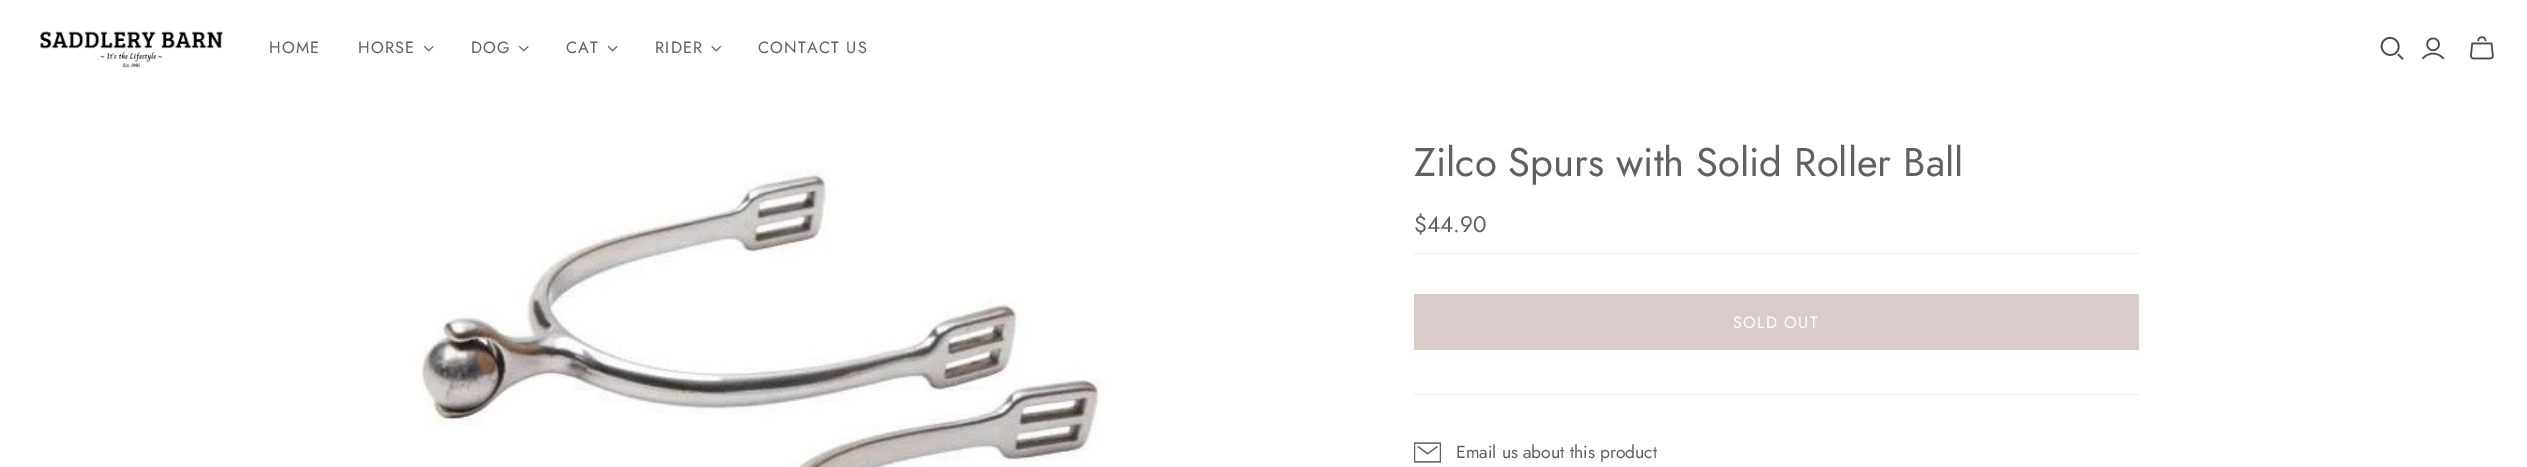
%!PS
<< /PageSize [2527 467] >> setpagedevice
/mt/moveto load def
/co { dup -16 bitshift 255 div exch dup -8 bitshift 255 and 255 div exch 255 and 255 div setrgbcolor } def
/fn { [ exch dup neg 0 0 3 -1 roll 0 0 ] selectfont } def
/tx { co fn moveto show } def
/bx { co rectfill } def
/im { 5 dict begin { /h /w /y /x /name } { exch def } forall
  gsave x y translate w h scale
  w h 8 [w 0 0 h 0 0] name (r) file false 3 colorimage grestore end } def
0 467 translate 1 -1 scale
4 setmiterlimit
0 0 2527 467 16#FFFFFF bx
(media/1.raw) 40 31 184 37 im
(media/2.raw) 424 45 10 7 im
(media/2.raw) 519 45 10 7 im
(media/3.raw) 608 45 10 7 im
(media/4.raw) 711 45 10 7 im
(media/5.raw) 2380 36 24 24 im
(media/6.raw) 2421 37 24 23 im
(media/7.raw) 2470 36 24 24 im
(media/8.raw) 418 169 686 298 im
1414 253 725 1 16#EBEBEB bx
1414 394 725 1 16#EBEBEB bx
1414 294 725 56 16#DBCCCC bx
(media/9.raw) 1414 442 27 21 im
/Jost-Regular 16.25 fn
16#606060 co
269 53 mt 1.25 0 (HOME) ashow
358 53 mt 1.25 0 (HORSE) ashow
471 53 mt 1.25 0 (DOG) ashow
566 53 mt 1.25 0 (CAT) ashow
655 53 mt 1.25 0 (RIDER) ashow
758 53 mt 1.25 0 (CONTACT US) ashow
(Zilco Spurs with Solid Roller Ball) 1414 176 /Jost-Regular 40 16#606060 tx
($44.90) 1414 232 /Jost-Regular 22.5 16#606060 tx
/Jost-Regular 16.25 fn
16#FFFFFF co
1733 328 mt 1.25 0 (SOLD OUT) ashow
(Email us about this product) 1456 458 /Jost-Regular 17.5 16#606060 tx
showpage
